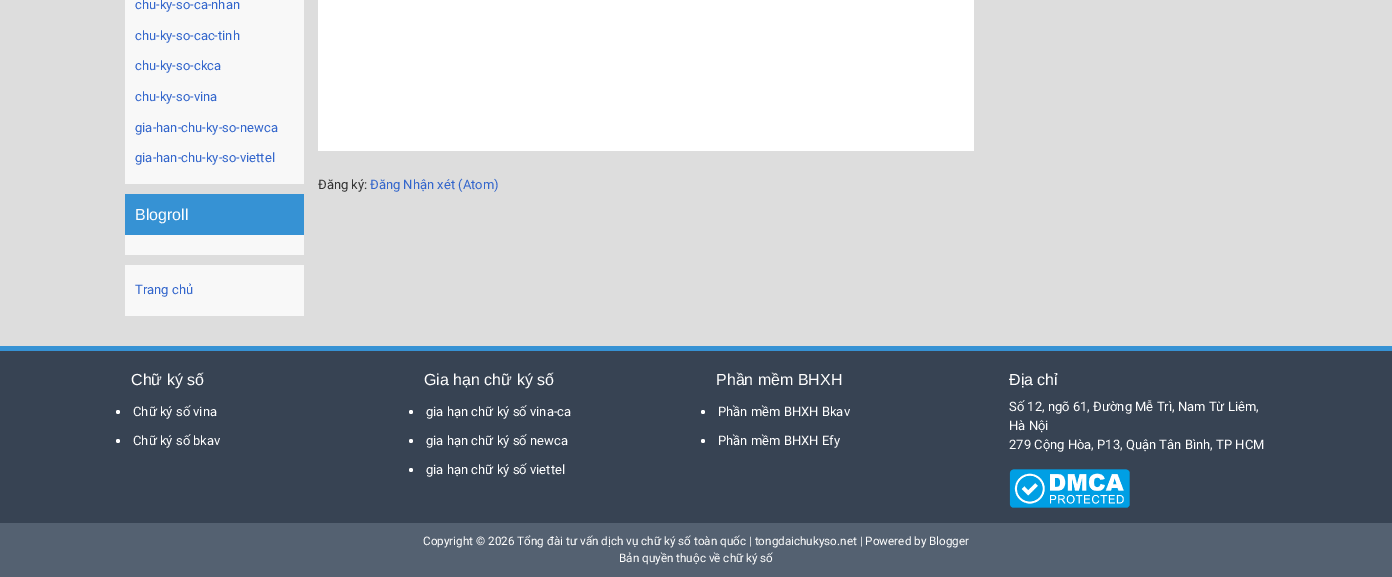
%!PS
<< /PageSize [1392 577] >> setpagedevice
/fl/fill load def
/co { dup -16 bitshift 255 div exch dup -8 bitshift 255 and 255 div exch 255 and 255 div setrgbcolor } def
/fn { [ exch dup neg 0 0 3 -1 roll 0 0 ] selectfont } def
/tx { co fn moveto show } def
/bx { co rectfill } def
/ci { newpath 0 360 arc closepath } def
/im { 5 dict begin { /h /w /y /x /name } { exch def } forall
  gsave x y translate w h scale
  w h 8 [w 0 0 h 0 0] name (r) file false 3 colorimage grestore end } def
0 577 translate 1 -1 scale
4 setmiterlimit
0 0 1392 577 16#DDDDDD bx
125 0 179 184 16#F8F8F8 bx
125 235 179 20 16#F8F8F8 bx
125 194 179 41 16#3692D4 bx
125 265 179 51 16#F8F8F8 bx
318 0 656 151 16#FFFFFF bx
0 351 1392 172 16#374353 bx
0 346 1392 5 16#3692D4 bx
16#FFFFFF co
118 412 2 ci fl
118 441 2 ci fl
411 412 2 ci fl
411 441 2 ci fl
411 470 2 ci fl
703 412 2 ci fl
703 441 2 ci fl
(media/1.raw) 1009 469 121 39 im
0 523 1392 54 16#546171 bx
(chu-ky-so-ca-nhan) 135 9 /Roboto-Regular 13 16#3366CC tx
(chu-ky-so-cac-tinh) 135 40 /Roboto-Regular 13 16#3366CC tx
(chu-ky-so-ckca) 135 70 /Roboto-Regular 13 16#3366CC tx
(chu-ky-so-vina) 135 101 /Roboto-Regular 13 16#3366CC tx
(gia-han-chu-ky-so-newca) 135 132 /Roboto-Regular 13 16#3366CC tx
(gia-han-chu-ky-so-viettel) 135 162 /Roboto-Regular 13 16#3366CC tx
(Blogroll) 135 220 /LiberationSans-Regular 16 16#FFFFFF tx
(Trang chủ) 135 294 /Roboto-Regular 13 16#3366CC tx
(Đăng ký:) 318 189 /Roboto-Regular 13 16#333333 tx
(Đăng Nhận xét \(Atom\)) 370 189 /Roboto-Regular 13 16#3366CC tx
(Chữ ký số) 131 385 /LiberationSans-Regular 16 16#FFFFFF tx
(Chữ ký số vina) 133 416 /Roboto-Regular 13 16#FFFFFF tx
(Chữ ký số bkav) 133 445 /Roboto-Regular 13 16#FFFFFF tx
(Gia hạn chữ ký số) 424 385 /LiberationSans-Regular 16 16#FFFFFF tx
(gia hạn chữ ký số vina-ca) 426 416 /Roboto-Regular 13 16#FFFFFF tx
(gia hạn chữ ký số newca) 426 445 /Roboto-Regular 13 16#FFFFFF tx
(gia hạn chữ ký số viettel) 426 474 /Roboto-Regular 13 16#FFFFFF tx
(Phần mềm BHXH) 716 385 /LiberationSans-Regular 16 16#FFFFFF tx
(Phần mềm BHXH Bkav) 718 416 /Roboto-Regular 13 16#FFFFFF tx
(Phần mềm BHXH Efy) 718 445 /Roboto-Regular 13 16#FFFFFF tx
(Địa chỉ) 1009 385 /LiberationSans-Regular 16 16#FFFFFF tx
(Số 12, ngõ 61, Đường Mễ Trì, Nam Từ Liêm,) 1009 411 /Roboto-Regular 13 16#FFFFFF tx
(Hà Nội) 1009 430 /Roboto-Regular 13 16#FFFFFF tx
(279 Cộng Hòa, P13, Quận Tân Bình, TP HCM) 1009 449 /Roboto-Regular 13 16#FFFFFF tx
(Copyright © 2026 Tổng đài tư vấn dịch vụ chữ ký số toàn quốc | tongdaichukyso.net | Powered by Blogger) 423 545 /Roboto-Regular 11.7 16#FFFFFF tx
(Bản quyền thuộc về chữ ký số) 619 562 /Roboto-Regular 11.7 16#FFFFFF tx
showpage
